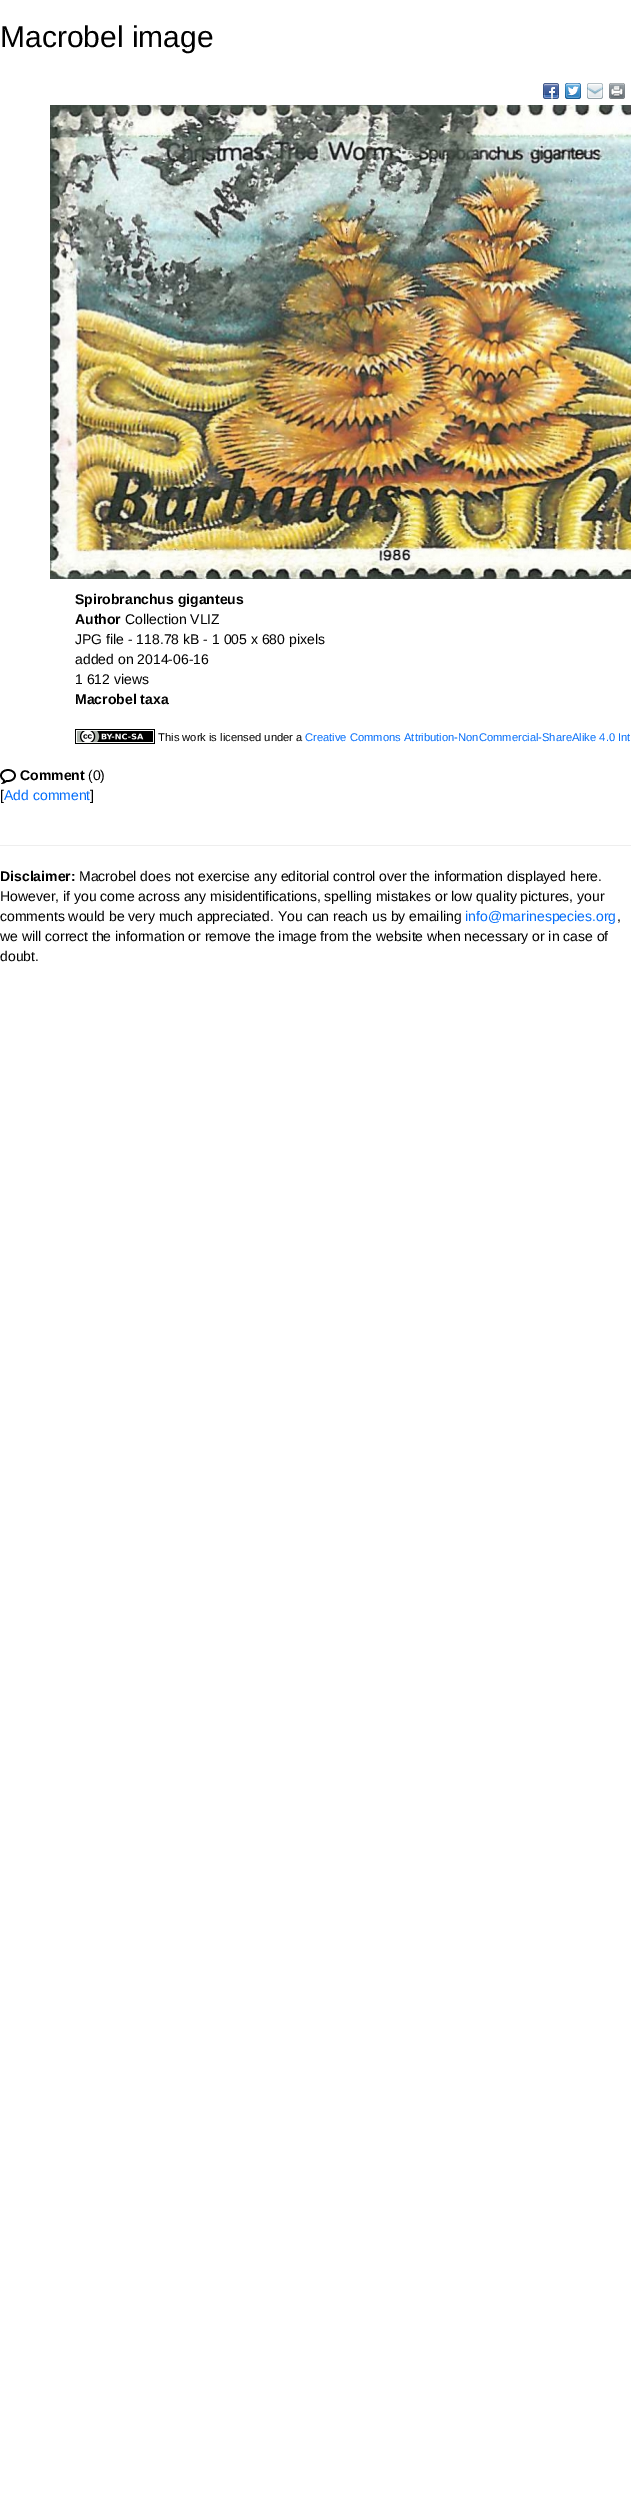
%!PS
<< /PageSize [631 2505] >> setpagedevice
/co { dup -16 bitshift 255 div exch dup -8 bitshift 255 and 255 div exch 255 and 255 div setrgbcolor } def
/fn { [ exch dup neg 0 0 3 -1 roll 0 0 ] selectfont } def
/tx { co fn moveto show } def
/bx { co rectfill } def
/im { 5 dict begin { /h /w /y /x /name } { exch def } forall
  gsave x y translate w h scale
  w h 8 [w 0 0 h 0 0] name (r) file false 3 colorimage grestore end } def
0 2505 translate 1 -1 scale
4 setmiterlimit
0 0 631 2505 16#FFFFFF bx
(media/1.raw) 543 83 16 16 im
(media/2.raw) 565 83 16 16 im
(media/3.raw) 587 83 16 16 im
(media/4.raw) 609 83 16 16 im
(media/5.raw) 50 105 581 474 im
(media/6.raw) 75 729 80 15 im
(media/7.raw) 0 769 16 15 im
0 845 631 1 16#EEEEEE bx
(Macrobel image) 0 47 /LiberationSans-Regular 30 16#000000 tx
(Spirobranchus giganteus) 75 604 /LiberationSans-Bold 14 16#000000 tx
(Author) 75 624 /LiberationSans-Bold 14 16#000000 tx
(Collection VLIZ) 125 624 /LiberationSans-Regular 14 16#000000 tx
(JPG file - 118.78 kB - 1 005 x 680 pixels) 75 644 /LiberationSans-Regular 14 16#000000 tx
(added on 2014-06-16) 75 664 /LiberationSans-Regular 14 16#000000 tx
(1 612 views) 75 684 /LiberationSans-Regular 14 16#000000 tx
(Macrobel taxa) 75 704 /LiberationSans-Bold 14 16#000000 tx
(This work is licensed under a) 158 741 /LiberationSans-Regular 11.2 16#000000 tx
(Creative Commons Attribution-NonCommercial-ShareAlike 4.0 Int) 305 741 /LiberationSans-Regular 11.2 16#026DFB tx
(Comment) 20 780 /LiberationSans-Bold 14 16#000000 tx
(\(0\)) 88 780 /LiberationSans-Regular 14 16#000000 tx
([) 0 800 /LiberationSans-Regular 14 16#000000 tx
(Add comment) 4 800 /LiberationSans-Regular 14 16#026DFB tx
(]) 90 800 /LiberationSans-Regular 14 16#000000 tx
(Disclaimer:) 0 881 /LiberationSans-Bold 14 16#000000 tx
(Macrobel does not exercise any editorial control over the information displayed here.) 79 881 /LiberationSans-Regular 14 16#000000 tx
(However, if you come across any misidentifications, spelling mistakes or low quality pictures, your) 0 901 /LiberationSans-Regular 14 16#000000 tx
(comments would be very much appreciated. You can reach us by emailing) 0 921 /LiberationSans-Regular 14 16#000000 tx
(info@marinespecies.org) 465 921 /LiberationSans-Regular 14 16#026DFB tx
(,) 617 921 /LiberationSans-Regular 14 16#000000 tx
(we will correct the information or remove the image from the website when necessary or in case of) 0 941 /LiberationSans-Regular 14 16#000000 tx
(doubt.) 0 961 /LiberationSans-Regular 14 16#000000 tx
showpage
